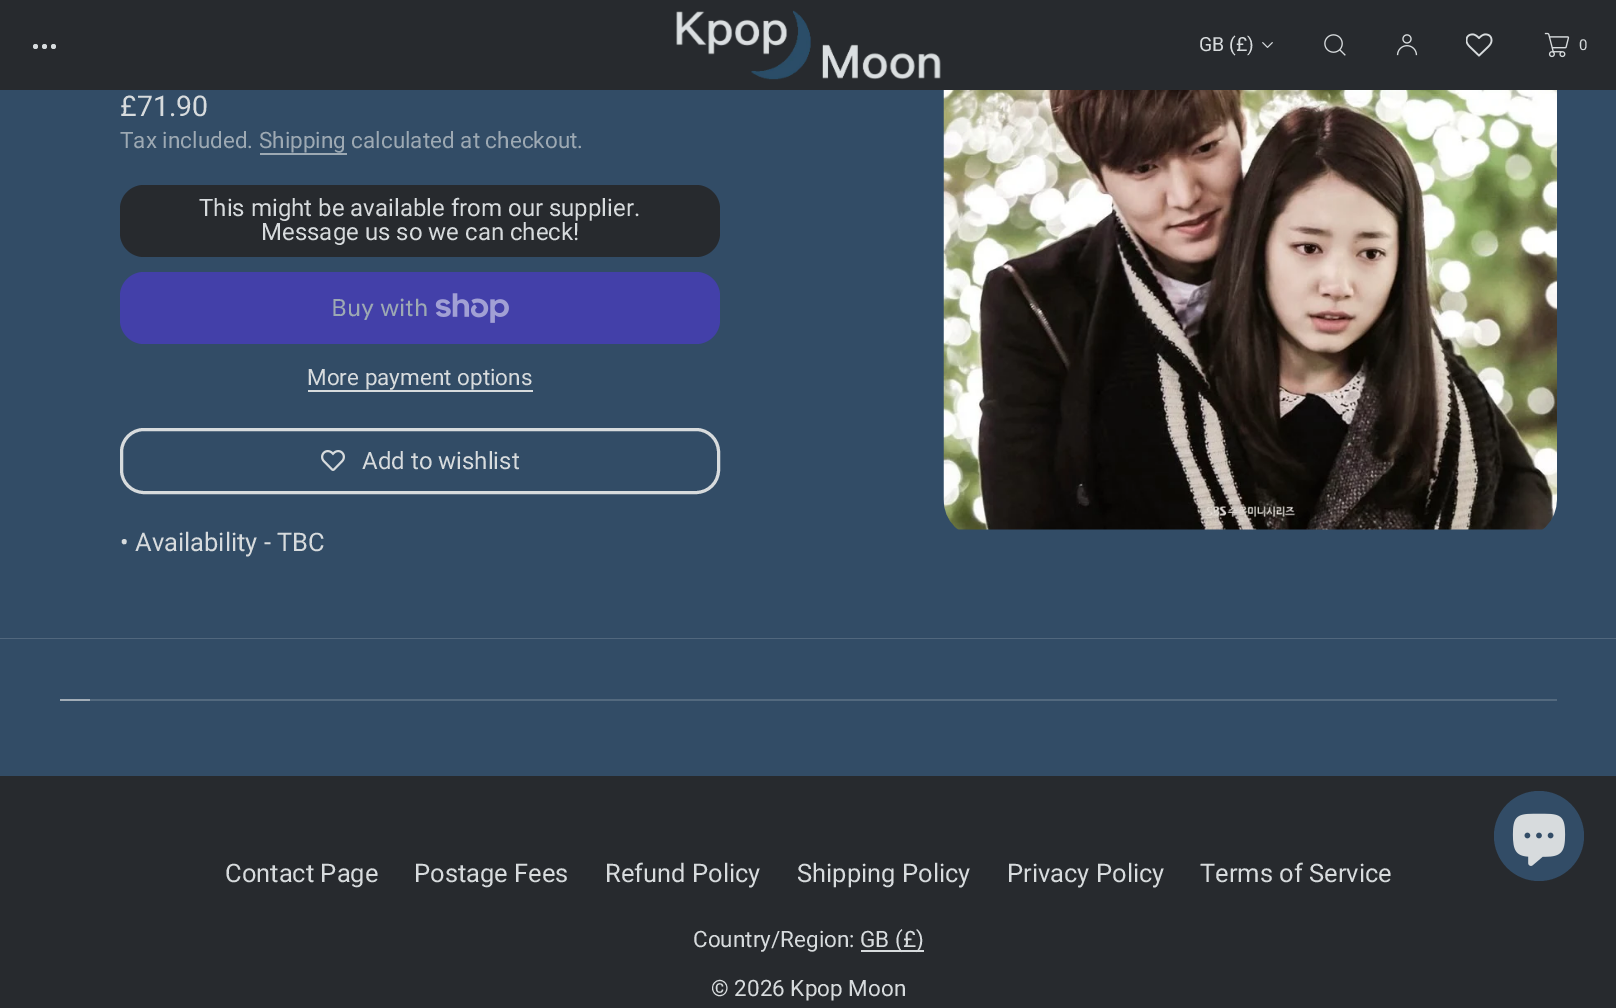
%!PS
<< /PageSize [1616 1008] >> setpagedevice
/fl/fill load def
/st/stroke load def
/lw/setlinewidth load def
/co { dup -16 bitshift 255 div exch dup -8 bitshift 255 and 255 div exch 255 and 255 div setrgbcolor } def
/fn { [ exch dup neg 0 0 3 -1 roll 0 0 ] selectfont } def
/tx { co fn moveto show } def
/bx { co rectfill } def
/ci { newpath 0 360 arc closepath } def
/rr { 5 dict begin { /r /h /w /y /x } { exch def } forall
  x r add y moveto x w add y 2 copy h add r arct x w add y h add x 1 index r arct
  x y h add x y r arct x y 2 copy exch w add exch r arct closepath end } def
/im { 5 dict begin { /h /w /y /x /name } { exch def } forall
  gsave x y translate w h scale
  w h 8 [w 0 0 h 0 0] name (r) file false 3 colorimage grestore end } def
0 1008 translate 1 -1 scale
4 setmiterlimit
0 0 1616 1008 16#324C66 bx
0 0 1616 90 16#272A2E bx
16#D7DBDD co
35.5 46.5 2.5 ci fl
44.5 46.5 2.5 ci fl
53.5 46.5 2.5 ci fl
(media/1.raw) 676 10 265 70 im
(media/2.raw) 1262 42 11 6 im
(media/3.raw) 1324 34 22 22 im
(media/4.raw) 1396 34 22 22 im
(media/5.raw) 1466 33 27 24 im
(media/6.raw) 1544 32 26 26 im
260 153 87 2 16#9DA9B3 bx
16#272A2E co
120 185 600 72 24 rr fl
16#4340A9 co
120 272 600 72 24 rr fl
(media/7.raw) 435 293 74 30 im
308 390 225 2 16#D7DBDD bx
3 lw
121.5 429.5 597 63 22.5 rr st
(media/8.raw) 321 450 24 21 im
(media/9.raw) 943 90 614 440 im
0 638 1616 1 16#51677D bx
90 699 1467 2 16#53697E bx
60 699 30 2 16#A2ADB7 bx
0 776 1616 232 16#272A2E bx
16#324C66 co
1539 836 45 ci fl
(media/10.raw) 1512 813 54 53 im
861 950 63 2 16#D7DBDD bx
(GB \(£\)) 1199 51 /Roboto-Regular 19.5 16#D7DBDD tx
(0) 1579 50 /Roboto-Regular 15 16#D7DBDD tx
(£71.90) 120 116 /Roboto-Regular 28.5 16#D7DBDD tx
(Tax included. Shipping calculated at checkout.) 120 148 /Roboto-Regular 22.5 16#9DA9B3 tx
(This might be available from our supplier.) 199 216 /Roboto-Regular 24 16#D7DBDD tx
(Message us so we can check!) 261 240 /Roboto-Regular 24 16#D7DBDD tx
(Buy with) 331 316 /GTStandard-Regular 24 16#9DA9B3 tx
(More payment options) 307 385 /Roboto-Regular 22.5 16#D7DBDD tx
(Add to wishlist) 362 469 /Roboto-Regular 24 16#D7DBDD tx
(• Availability - TBC) 120 551 /Roboto-Regular 25.5 16#D7DBDD tx
(Contact Page) 225 882 /Roboto-Regular 25.5 16#D7DBDD tx
(Postage Fees) 414 882 /Roboto-Regular 25.5 16#D7DBDD tx
(Refund Policy) 605 882 /Roboto-Regular 25.5 16#D7DBDD tx
(Shipping Policy) 797 882 /Roboto-Regular 25.5 16#D7DBDD tx
(Privacy Policy) 1007 882 /Roboto-Regular 25.5 16#D7DBDD tx
(Terms of Service) 1200 882 /Roboto-Regular 25.5 16#D7DBDD tx
(Country/Region:) 693 947 /Roboto-Regular 22.5 16#D7DBDD tx
(GB \(£\)) 860 947 /Roboto-Regular 22.5 16#D7DBDD tx
(© 2026 Kpop Moon) 711 996 /Roboto-Regular 22.5 16#D7DBDD tx
showpage
